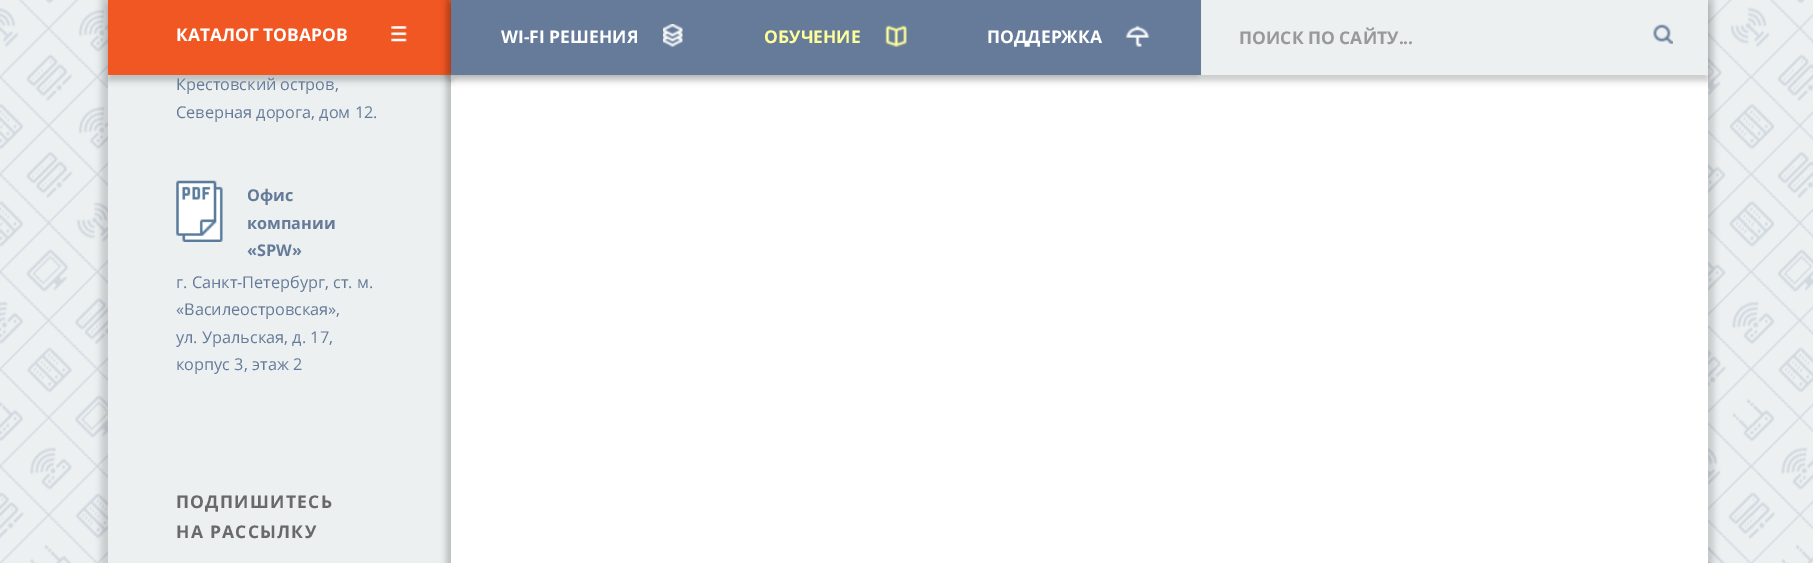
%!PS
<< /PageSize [1813 563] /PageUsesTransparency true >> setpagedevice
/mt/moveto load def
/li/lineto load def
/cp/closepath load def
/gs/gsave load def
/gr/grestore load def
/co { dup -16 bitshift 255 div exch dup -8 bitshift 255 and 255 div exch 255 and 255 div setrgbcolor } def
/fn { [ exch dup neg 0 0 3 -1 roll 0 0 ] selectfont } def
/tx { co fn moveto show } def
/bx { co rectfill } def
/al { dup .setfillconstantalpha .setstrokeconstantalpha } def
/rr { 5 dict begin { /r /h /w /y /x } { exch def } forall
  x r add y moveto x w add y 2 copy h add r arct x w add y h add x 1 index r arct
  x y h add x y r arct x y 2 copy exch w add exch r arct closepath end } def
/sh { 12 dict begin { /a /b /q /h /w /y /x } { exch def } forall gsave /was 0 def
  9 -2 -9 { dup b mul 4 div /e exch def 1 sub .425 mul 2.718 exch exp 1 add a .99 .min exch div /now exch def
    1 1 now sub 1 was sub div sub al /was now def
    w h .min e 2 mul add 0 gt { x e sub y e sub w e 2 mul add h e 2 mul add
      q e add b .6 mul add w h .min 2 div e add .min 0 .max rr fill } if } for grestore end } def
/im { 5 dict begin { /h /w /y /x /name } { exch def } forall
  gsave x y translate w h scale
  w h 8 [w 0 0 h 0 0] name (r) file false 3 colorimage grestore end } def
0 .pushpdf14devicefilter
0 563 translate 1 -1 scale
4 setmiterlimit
0 0 1813 563 16#ECF0F1 bx
(media/1.raw) 0 0 1813 563 im
16#000000 co
101 -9 1613 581 0 3 .15 sh
451 75 1257 488 16#FFFFFF bx
108 75 343 488 16#ECF0F1 bx
16#000000 co
108 6 343 75 0 3 .2 sh
gs
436 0 mt 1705 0 li 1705 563 li 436 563 li cp 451 -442 mt 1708 -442 li 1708 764 li 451 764 li cp eoclip newpath
446 -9 1249 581 0 3 .2 sh
gr
108 0 343 75 16#F15722 bx
(media/2.raw) 391 26 16 16 im
16#000000 co
451 6 1257 75 0 3 .2 sh
1201 0 507 75 16#ECF0F1 bx
16#000000 co
446 0 750 75 0 3 .2 sh
451 0 750 75 16#657B99 bx
(media/3.raw) 663 24 20 23 im
(media/4.raw) 885 25 22 22 im
(media/5.raw) 1125 25 25 22 im
(media/6.raw) 1653 24 20 20 im
(media/7.raw) 176 180 47 62 im
(КАТАЛОГ ТОВАРОВ) 176 41 /OpenSans-Bold 17.5 16#FFFFFF tx
(WI-FI РЕШЕНИЯ) 501 43 /OpenSans-Bold 17.5 16#FFFFFF tx
(ОБУЧЕНИЕ) 764 43 /OpenSans-Bold 17.5 16#FFFF99 tx
(ПОДДЕРЖКА) 987 43 /OpenSans-Bold 17.5 16#FFFFFF tx
(ПОИСК ПО САЙТУ...) 1239 44 /OpenSans-Bold 17.5 16#999999 tx
(Крестовский остров,) 176 90 /OpenSans-Regular 16.25 16#657B99 tx
(Северная дорога, дом 12.) 176 118 /OpenSans-Regular 16.25 16#657B99 tx
(Офис) 247 201 /OpenSans-Bold 16.25 16#657B99 tx
(компании) 247 229 /OpenSans-Bold 16.25 16#657B99 tx
(«SPW») 247 256 /OpenSans-Bold 16.25 16#657B99 tx
(г. Санкт-Петербург, ст. м.) 176 288 /OpenSans-Regular 16.25 16#657B99 tx
(«Василеостровская»,) 176 315 /OpenSans-Regular 16.25 16#657B99 tx
(ул. Уральская, д. 17,) 176 343 /OpenSans-Regular 16.25 16#657B99 tx
(корпус 3, этаж 2) 176 370 /OpenSans-Regular 16.25 16#657B99 tx
/OpenSans-Bold 17.5 fn
16#696969 co
176 508 mt 1.25 0 (ПОДПИШИТЕСЬ) ashow
176 538 mt 1.25 0 (НА РАССЫЛКУ) ashow
.poppdf14devicefilter showpage
